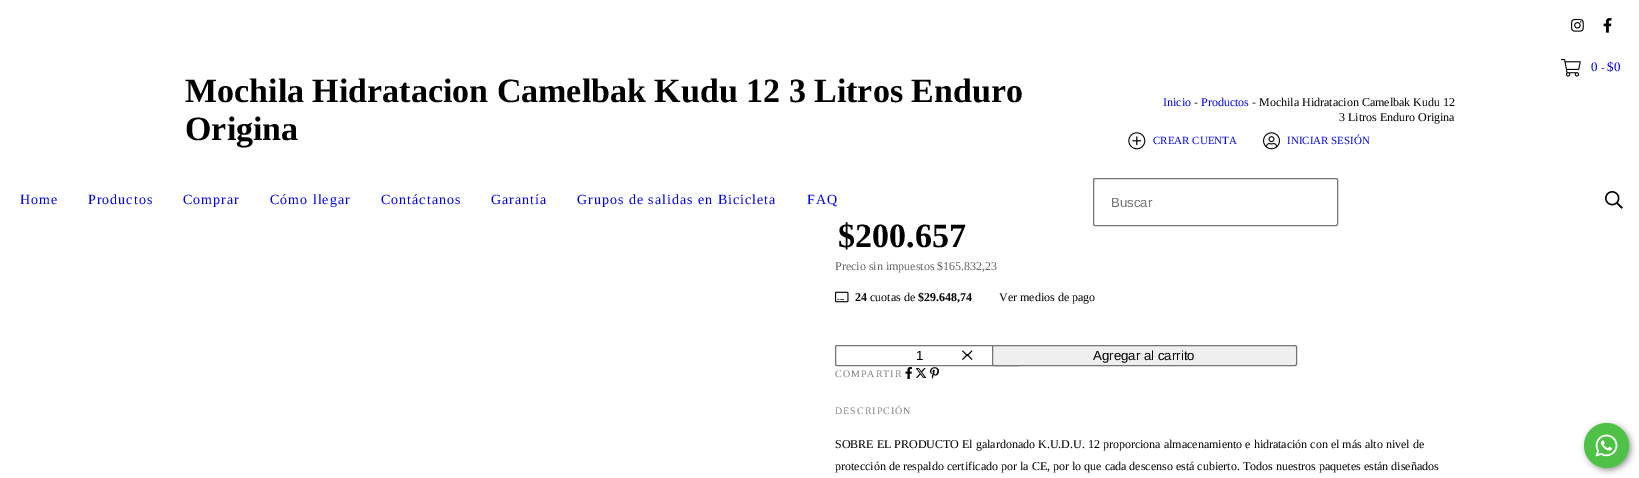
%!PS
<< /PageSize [1639 478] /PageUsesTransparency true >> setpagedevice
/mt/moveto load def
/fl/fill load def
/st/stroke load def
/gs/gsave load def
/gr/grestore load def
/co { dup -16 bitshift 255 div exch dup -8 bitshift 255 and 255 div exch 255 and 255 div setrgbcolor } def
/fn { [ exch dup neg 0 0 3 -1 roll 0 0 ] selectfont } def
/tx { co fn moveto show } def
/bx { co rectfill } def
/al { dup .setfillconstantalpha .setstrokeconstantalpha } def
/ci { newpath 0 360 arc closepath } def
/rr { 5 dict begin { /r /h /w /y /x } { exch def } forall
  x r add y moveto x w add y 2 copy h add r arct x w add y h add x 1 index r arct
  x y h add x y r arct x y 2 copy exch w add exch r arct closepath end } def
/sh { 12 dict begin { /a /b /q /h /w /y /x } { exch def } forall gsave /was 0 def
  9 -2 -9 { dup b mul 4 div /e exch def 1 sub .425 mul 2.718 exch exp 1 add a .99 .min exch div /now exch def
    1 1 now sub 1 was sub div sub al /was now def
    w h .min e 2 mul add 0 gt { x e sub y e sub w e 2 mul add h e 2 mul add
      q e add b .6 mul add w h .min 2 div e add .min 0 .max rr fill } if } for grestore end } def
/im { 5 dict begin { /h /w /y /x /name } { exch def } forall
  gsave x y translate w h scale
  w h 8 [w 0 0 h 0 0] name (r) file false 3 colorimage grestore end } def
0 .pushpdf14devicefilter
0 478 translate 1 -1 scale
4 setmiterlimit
0 0 1639 478 16#FFFFFF bx
(media/1.raw) 1571 18 13 14 im
(media/2.raw) 1603 18 9 15 im
(media/3.raw) 1561 59 20 18 im
(media/4.raw) 1128 132 18 18 im
(media/5.raw) 1263 132 17 18 im
16#767676 co
1093.5 178.5 244 47 1.5 rr st
(media/6.raw) 1605 191 18 18 im
(media/7.raw) 835 291 14 12 im
835.5 345.5 184 20 1.5 rr st
(media/8.raw) 962 350 11 7 im
(media/9.raw) 962 354 11 6 im
16#EFEFEF co
992.5 345.5 304 20 1.5 rr gs fl gr
16#767676 co
st
(media/10.raw) 905 367 7 12 im
(media/11.raw) 915 368 12 10 im
(media/12.raw) 930 367 9 12 im
16#000000 co
1586 425 45 45 22.5 3 .4 sh
16#4DC247 co
1606.5 445.5 22.5 ci fl
(media/13.raw) 1595 434 23 23 im
(0) 1591 71 /LiberationSerif-Regular 13 16#0000EE tx
(-) 1601 71 /LiberationSerif-Regular 11 16#0000EE tx
($0) 1607 71 /LiberationSerif-Regular 13 16#0000EE tx
(CREAR CUENTA) 1153 144 /LiberationSerif-Regular 11 16#0000EE tx
(INICIAR SESIÓN) 1287 144 /LiberationSerif-Regular 11 16#0000EE tx
/LiberationSerif-Regular 14 fn
20 204 mt 1 0 (Home) ashow
88 204 mt 1 0 (Productos) ashow
183 204 mt 1 0 (Comprar) ashow
270 204 mt 1 0 (Cómo llegar) ashow
381 204 mt 1 0 (Contáctanos) ashow
491 204 mt 1 0 (Garantía) ashow
577 204 mt 1 0 (Grupos de salidas en Bicicleta) ashow
807 204 mt 1 0 (FAQ) ashow
(Buscar) 1111 207 /LiberationSans-Regular 13.25 16#757575 tx
(Mochila Hidratacion Camelbak Kudu 12 3 Litros Enduro) 185 102 /LiberationSerif-Bold 34 16#000000 tx
(Origina) 185 140 /LiberationSerif-Bold 34 16#000000 tx
(Inicio) 1163 106 /LiberationSerif-Regular 12 16#0000EE tx
(-) 1194 106 /LiberationSerif-Regular 12 16#000000 tx
(Productos) 1201 106 /LiberationSerif-Regular 12 16#0000EE tx
(- Mochila Hidratacion Camelbak Kudu 12) 1252 106 /LiberationSerif-Regular 12 16#000000 tx
(3 Litros Enduro Origina) 1339 121 /LiberationSerif-Regular 12 16#000000 tx
($200.657) 838 247 /LiberationSerif-Bold 34 16#000000 tx
(Precio sin impuestos $165.832,23) 835 270 /LiberationSerif-Regular 12 16#666666 tx
(24) 855 301 /LiberationSerif-Bold 12 16#000000 tx
(cuotas de) 870 301 /LiberationSerif-Regular 12 16#000000 tx
($29.648,74) 918 301 /LiberationSerif-Bold 12 16#000000 tx
(Ver medios de pago) 999 301 /LiberationSerif-Regular 12 16#000000 tx
(1) 916 360 /LiberationSans-Regular 13.25 16#000000 tx
(Agregar al carrito) 1093 360 /LiberationSans-Regular 13.25 16#000000 tx
/LiberationSerif-Regular 10 fn
16#808080 co
835 377 mt 1 0 (COMPARTIR) ashow
835 414 mt 1 0 (DESCRIPCIÓN) ashow
(SOBRE EL PRODUCTO El galardonado K.U.D.U. 12 proporciona almacenamiento e hidratación con el más alto nivel de) 835 448 /LiberationSerif-Regular 12 16#000000 tx
(protección de respaldo certificado por la CE, por lo que cada descenso está cubierto. Todos nuestros paquetes están diseñados) 835 470 /LiberationSerif-Regular 12 16#000000 tx
.poppdf14devicefilter showpage
